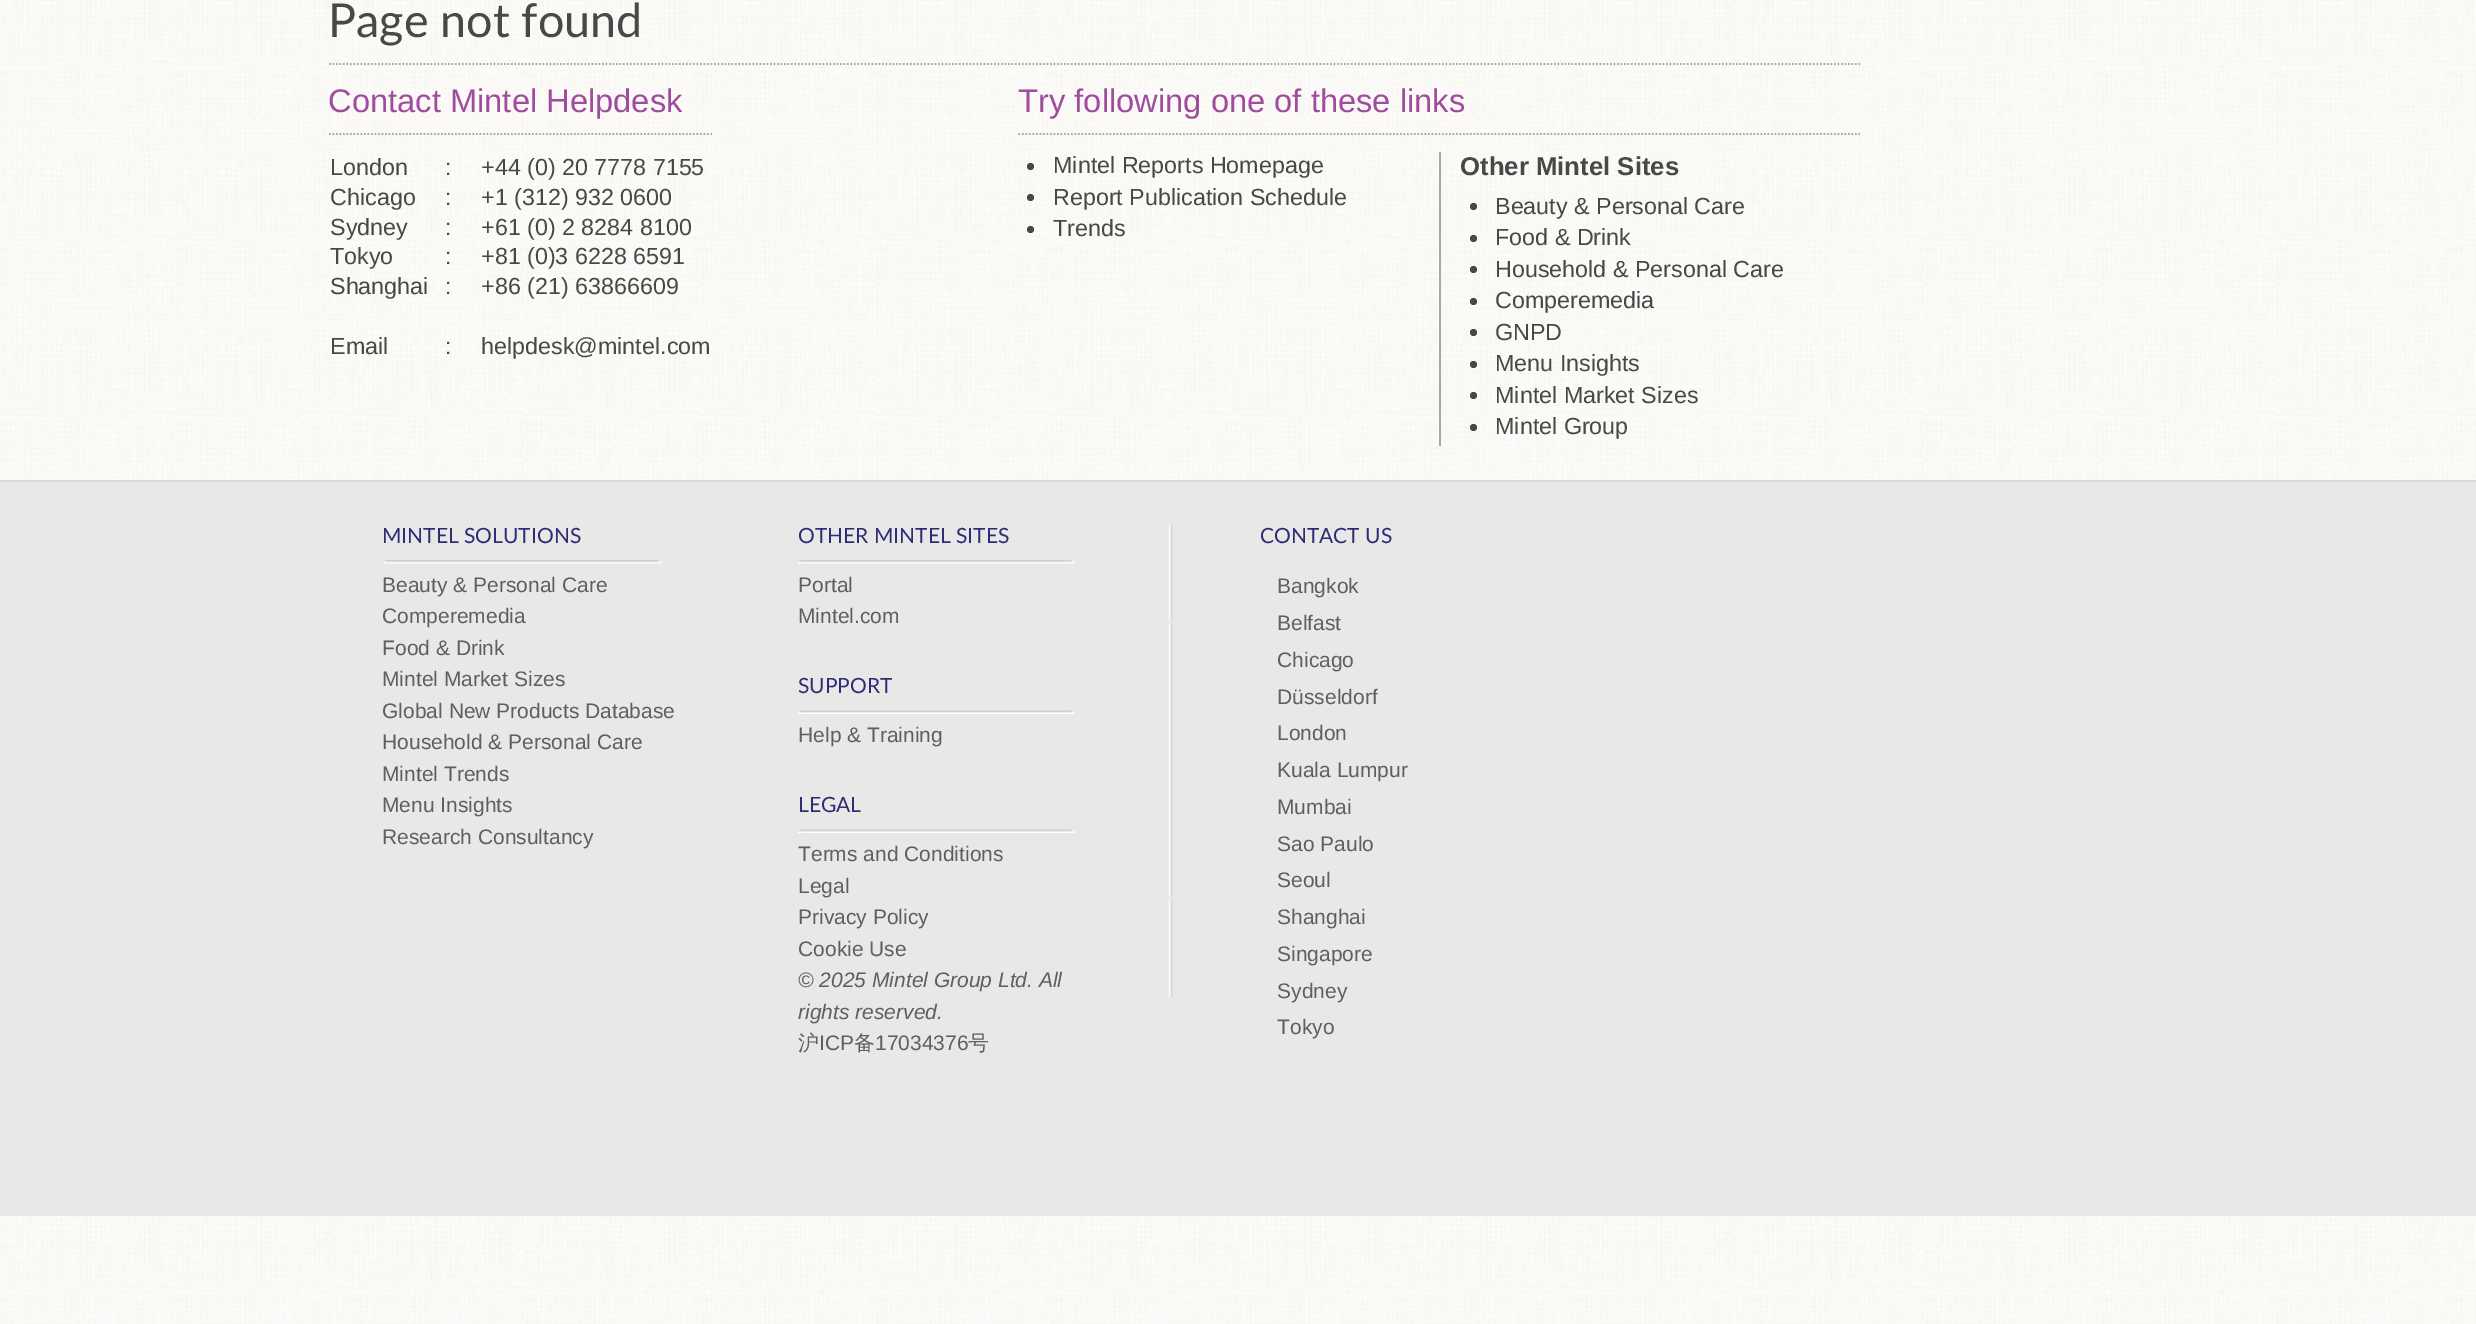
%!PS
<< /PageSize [2476 1324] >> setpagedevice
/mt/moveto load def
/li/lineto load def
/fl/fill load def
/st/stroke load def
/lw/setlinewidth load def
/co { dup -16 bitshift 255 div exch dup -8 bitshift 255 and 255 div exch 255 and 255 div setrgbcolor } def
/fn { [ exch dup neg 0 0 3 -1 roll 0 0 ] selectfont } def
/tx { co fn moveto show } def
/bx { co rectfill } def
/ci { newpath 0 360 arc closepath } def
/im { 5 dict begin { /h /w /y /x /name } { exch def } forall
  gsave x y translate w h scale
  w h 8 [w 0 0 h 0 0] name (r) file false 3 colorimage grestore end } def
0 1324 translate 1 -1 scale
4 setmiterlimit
0 0 2476 1324 16#FFFFFF bx
(media/1.raw) 0 0 2476 1324 im
16#A5A8AD co
1.8 lw
[1.75 1.75] 0 setdash
329 64 mt 1860 64 li st
329 134 mt 712 134 li st
1018.5 134 mt 1860 134 li st
16#484848 co
1030.5 166.5 3.5 ci fl
1030.5 197.5 3.5 ci fl
1030.5 229.5 3.5 ci fl
1439 152 2 294 16#A5A8AD bx
16#484848 co
1473.5 206.5 3.5 ci fl
1473.5 238.5 3.5 ci fl
1473.5 269.5 3.5 ci fl
1473.5 301.5 3.5 ci fl
1473.5 332.5 3.5 ci fl
1473.5 364.5 3.5 ci fl
1473.5 395.5 3.5 ci fl
1473.5 427.5 3.5 ci fl
0 482 2476 734 16#E8E8E7 bx
0 480 2476 2 16#D9D9D7 bx
(media/2.raw) 383 560 279 4 im
(media/3.raw) 798 560 277 4 im
(media/4.raw) 798 710 277 4 im
(media/4.raw) 798 829 277 4 im
(media/5.raw) 1168 525 5 473 im
(Page not found) 328 37 /Lato-Regular 46.75 16#484848 tx
(Contact Mintel Helpdesk) 328 112 /LiberationSans-Regular 32.7 16#9F4B9E tx
(London) 330 175 /LiberationSans-Regular 23.3 16#484848 tx
(:) 445 175 /LiberationSans-Regular 23.3 16#484848 tx
(+44 \(0\) 20 7778 7155) 481 175 /LiberationSans-Regular 23.3 16#484848 tx
(Chicago) 330 205 /LiberationSans-Regular 23.3 16#484848 tx
(:) 445 205 /LiberationSans-Regular 23.3 16#484848 tx
(+1 \(312\) 932 0600) 481 205 /LiberationSans-Regular 23.3 16#484848 tx
(Sydney) 330 235 /LiberationSans-Regular 23.3 16#484848 tx
(:) 445 235 /LiberationSans-Regular 23.3 16#484848 tx
(+61 \(0\) 2 8284 8100) 481 235 /LiberationSans-Regular 23.3 16#484848 tx
(Tokyo) 330 264 /LiberationSans-Regular 23.3 16#484848 tx
(:) 445 264 /LiberationSans-Regular 23.3 16#484848 tx
(+81 \(0\)3 6228 6591) 481 264 /LiberationSans-Regular 23.3 16#484848 tx
(Shanghai) 330 294 /LiberationSans-Regular 23.3 16#484848 tx
(:) 445 294 /LiberationSans-Regular 23.3 16#484848 tx
(+86 \(21\) 63866609) 481 294 /LiberationSans-Regular 23.3 16#484848 tx
(Email) 330 354 /LiberationSans-Regular 23.3 16#484848 tx
(:) 445 354 /LiberationSans-Regular 23.3 16#484848 tx
(helpdesk@mintel.com) 481 354 /LiberationSans-Regular 23.3 16#484848 tx
(Try following one of these links) 1018 112 /LiberationSans-Regular 32.7 16#9F4B9E tx
(Mintel Reports Homepage) 1053 173 /LiberationSans-Regular 23.3 16#484848 tx
(Report Publication Schedule) 1053 205 /LiberationSans-Regular 23.3 16#484848 tx
(Trends) 1053 236 /LiberationSans-Regular 23.3 16#484848 tx
(Other Mintel Sites) 1460 175 /LiberationSans-Bold 25.75 16#484848 tx
(Beauty & Personal Care) 1495 214 /LiberationSans-Regular 23.3 16#484848 tx
(Food & Drink) 1495 245 /LiberationSans-Regular 23.3 16#484848 tx
(Household & Personal Care) 1495 277 /LiberationSans-Regular 23.3 16#484848 tx
(Comperemedia) 1495 308 /LiberationSans-Regular 23.3 16#484848 tx
(GNPD) 1495 340 /LiberationSans-Regular 23.3 16#484848 tx
(Menu Insights) 1495 371 /LiberationSans-Regular 23.3 16#484848 tx
(Mintel Market Sizes) 1495 403 /LiberationSans-Regular 23.3 16#484848 tx
(Mintel Group) 1495 434 /LiberationSans-Regular 23.3 16#484848 tx
(MINTEL SOLUTIONS) 382 543 /Lato-Regular 21 16#302B77 tx
(Beauty & Personal Care) 382 592 /LiberationSans-Regular 21 16#5F5F5F tx
(Comperemedia) 382 623 /LiberationSans-Regular 21 16#5F5F5F tx
(Food & Drink) 382 655 /LiberationSans-Regular 21 16#5F5F5F tx
(Mintel Market Sizes) 382 686 /LiberationSans-Regular 21 16#5F5F5F tx
(Global New Products Database) 382 718 /LiberationSans-Regular 21 16#5F5F5F tx
(Household & Personal Care) 382 749 /LiberationSans-Regular 21 16#5F5F5F tx
(Mintel Trends) 382 781 /LiberationSans-Regular 21 16#5F5F5F tx
(Menu Insights) 382 812 /LiberationSans-Regular 21 16#5F5F5F tx
(Research Consultancy) 382 844 /LiberationSans-Regular 21 16#5F5F5F tx
(OTHER MINTEL SITES) 798 543 /Lato-Regular 21 16#302B77 tx
(Portal) 798 592 /LiberationSans-Regular 21 16#5F5F5F tx
(Mintel.com) 798 623 /LiberationSans-Regular 21 16#5F5F5F tx
(SUPPORT) 798 693 /Lato-Regular 21 16#302B77 tx
(Help & Training) 798 742 /LiberationSans-Regular 21 16#5F5F5F tx
(LEGAL) 798 812 /Lato-Regular 21 16#302B77 tx
(Terms and Conditions) 798 861 /LiberationSans-Regular 21 16#5F5F5F tx
(Legal) 798 893 /LiberationSans-Regular 21 16#5F5F5F tx
(Privacy Policy) 798 924 /LiberationSans-Regular 21 16#5F5F5F tx
(Cookie Use) 798 956 /LiberationSans-Regular 21 16#5F5F5F tx
(© 2025 Mintel Group Ltd. All) 798 987 /LiberationSans-Italic 21 16#5F5F5F tx
(rights reserved.) 798 1019 /LiberationSans-Italic 21 16#5F5F5F tx
(沪) 798 1050 /WenQuanYiZenHei-Medium 21 16#5F5F5F tx
(ICP) 819 1050 /LiberationSans-Regular 21 16#5F5F5F tx
(备) 854 1050 /WenQuanYiZenHei-Medium 21 16#5F5F5F tx
(17034376) 875 1050 /LiberationSans-Regular 21 16#5F5F5F tx
(号) 968 1050 /WenQuanYiZenHei-Medium 21 16#5F5F5F tx
(CONTACT US) 1260 543 /Lato-Regular 21 16#302B77 tx
(Bangkok) 1277 593 /LiberationSans-Regular 21 16#5F5F5F tx
(Belfast) 1277 630 /LiberationSans-Regular 21 16#5F5F5F tx
(Chicago) 1277 667 /LiberationSans-Regular 21 16#5F5F5F tx
(Düsseldorf) 1277 704 /LiberationSans-Regular 21 16#5F5F5F tx
(London) 1277 740 /LiberationSans-Regular 21 16#5F5F5F tx
(Kuala Lumpur) 1277 777 /LiberationSans-Regular 21 16#5F5F5F tx
(Mumbai) 1277 814 /LiberationSans-Regular 21 16#5F5F5F tx
(Sao Paulo) 1277 851 /LiberationSans-Regular 21 16#5F5F5F tx
(Seoul) 1277 887 /LiberationSans-Regular 21 16#5F5F5F tx
(Shanghai) 1277 924 /LiberationSans-Regular 21 16#5F5F5F tx
(Singapore) 1277 961 /LiberationSans-Regular 21 16#5F5F5F tx
(Sydney) 1277 998 /LiberationSans-Regular 21 16#5F5F5F tx
(Tokyo) 1277 1034 /LiberationSans-Regular 21 16#5F5F5F tx
showpage
